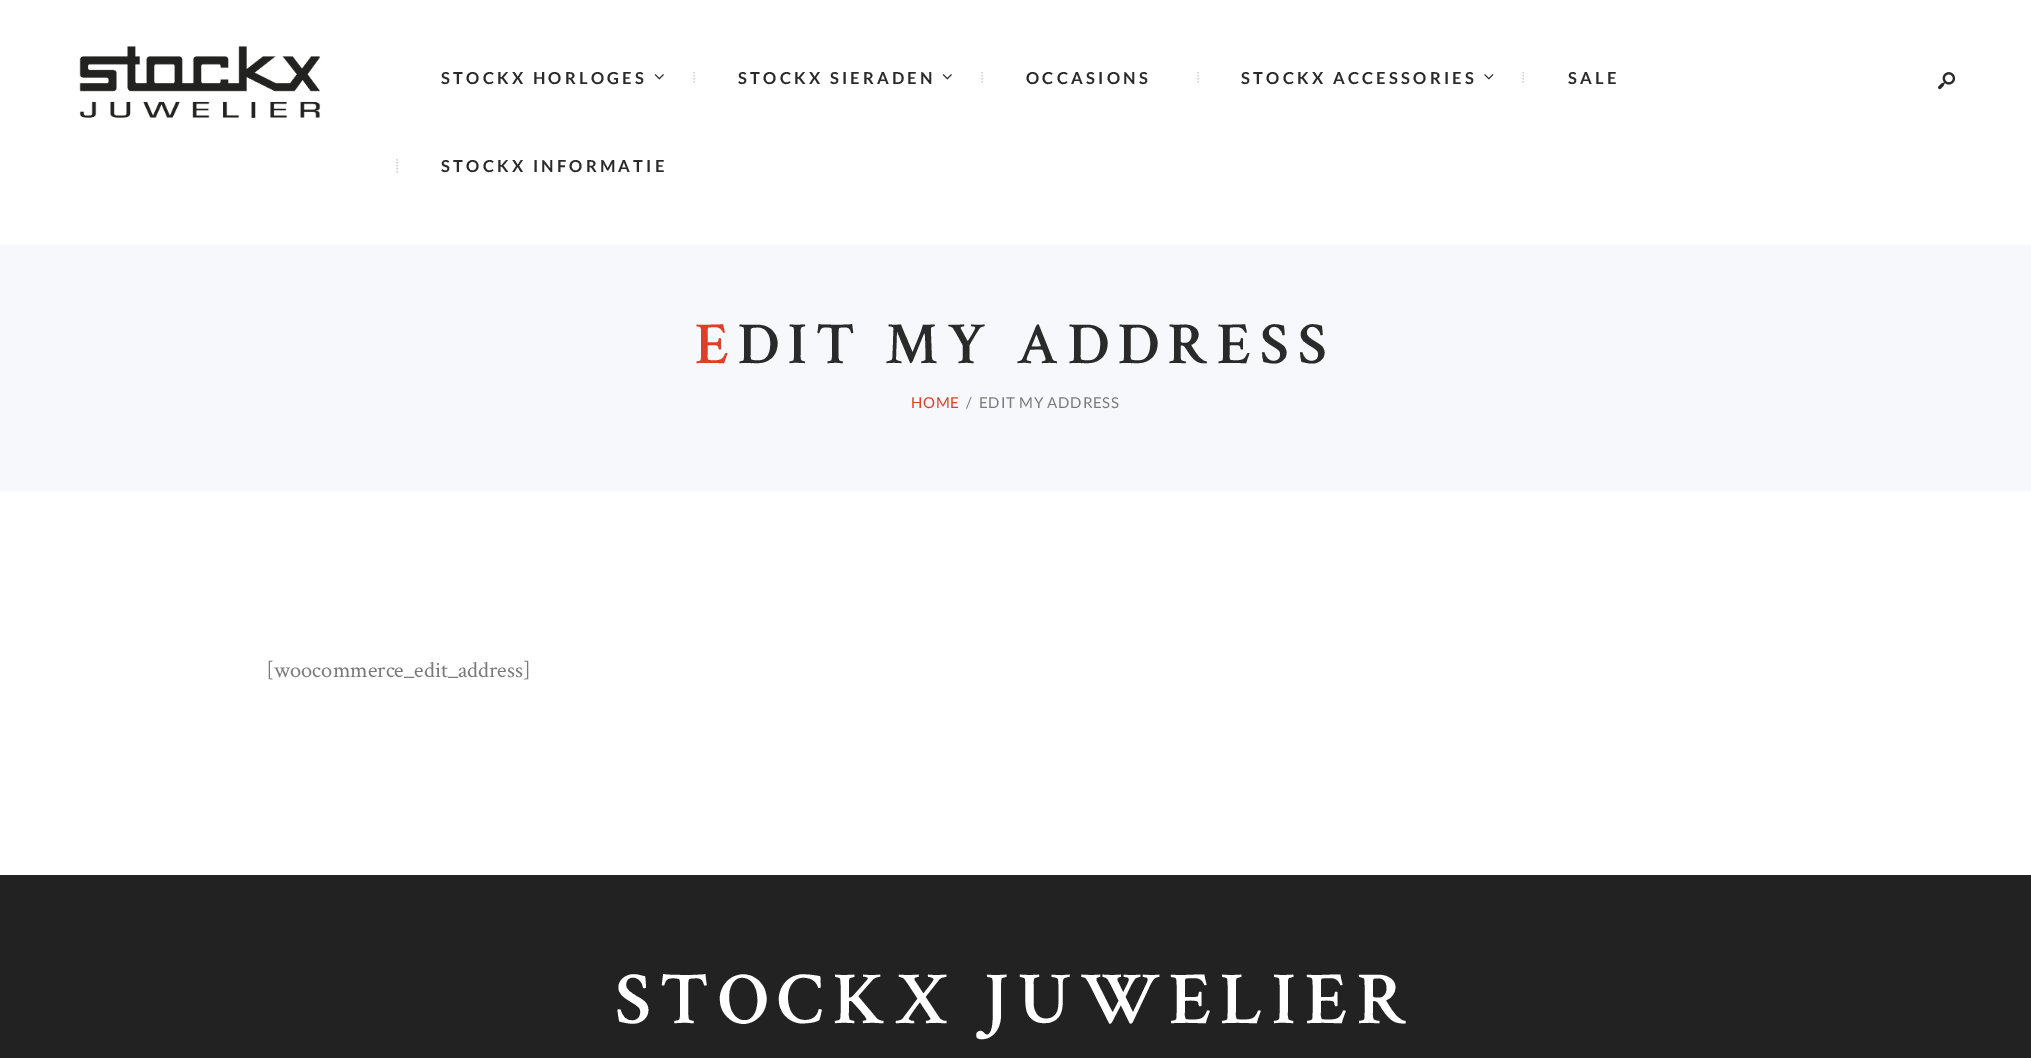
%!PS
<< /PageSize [2031 1058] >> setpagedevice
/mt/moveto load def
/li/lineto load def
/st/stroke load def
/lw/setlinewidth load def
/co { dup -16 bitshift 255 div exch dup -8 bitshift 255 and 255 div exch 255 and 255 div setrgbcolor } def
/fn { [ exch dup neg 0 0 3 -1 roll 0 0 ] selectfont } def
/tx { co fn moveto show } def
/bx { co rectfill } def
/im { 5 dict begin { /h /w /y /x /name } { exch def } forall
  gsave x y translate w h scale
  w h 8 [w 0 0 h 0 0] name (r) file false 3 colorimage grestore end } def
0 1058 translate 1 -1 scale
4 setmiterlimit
0 0 2031 1058 16#FFFFFF bx
(media/1.raw) 79 46 242 72 im
(media/2.raw) 654 74 10 6 im
16#D4D4D4 co
1.5 lw
[1.5 1.5] 0 setdash
694 72 mt 694 84 li st
(media/2.raw) 942 74 10 6 im
982 72 mt 982 84 li st
1198 72 mt 1198 84 li st
(media/3.raw) 1484 74 10 6 im
1523 72 mt 1523 84 li st
397 159 mt 397 172.5 li st
(media/4.raw) 1938 72 18 18 im
0 245 2031 246 16#F7F8FC bx
0 875 2031 183 16#222222 bx
/Lato-Bold 16.5 fn
16#2A2A2A co
441 84 mt 3.25 0 (STOCKX HORLOGES) ashow
738 84 mt 3.25 0 (STOCKX SIERADEN) ashow
1026 84 mt 3.25 0 (OCCASIONS) ashow
1241 84 mt 3.25 0 (STOCKX ACCESSORIES) ashow
1568 84 mt 3.25 0 (SALE) ashow
441 172 mt 3.25 0 (STOCKX INFORMATIE) ashow
/CrimsonText-SemiBold 59.75 fn
16#DD4026 co
695 363 mt 9 0 (E) ashow
16#2A2A2A co
738 363 mt 9 0 (DIT MY ADDRESS) ashow
/Lato-Regular 15 fn
16#DD4026 co
911 408 mt .75 0 (HOME) ashow
16#7A7A7A co
966 408 mt .75 0 (/) ashow
979 408 mt .75 0 (EDIT MY ADDRESS) ashow
([woocommerce_edit_address]) 266 677 /CrimsonText-Regular 22.5 16#7A7A7A tx
/CrimsonText-SemiBold 75 fn
16#FFFFFF co
615 1023 mt 9 0 (STOCKX JUWELIER) ashow
showpage
